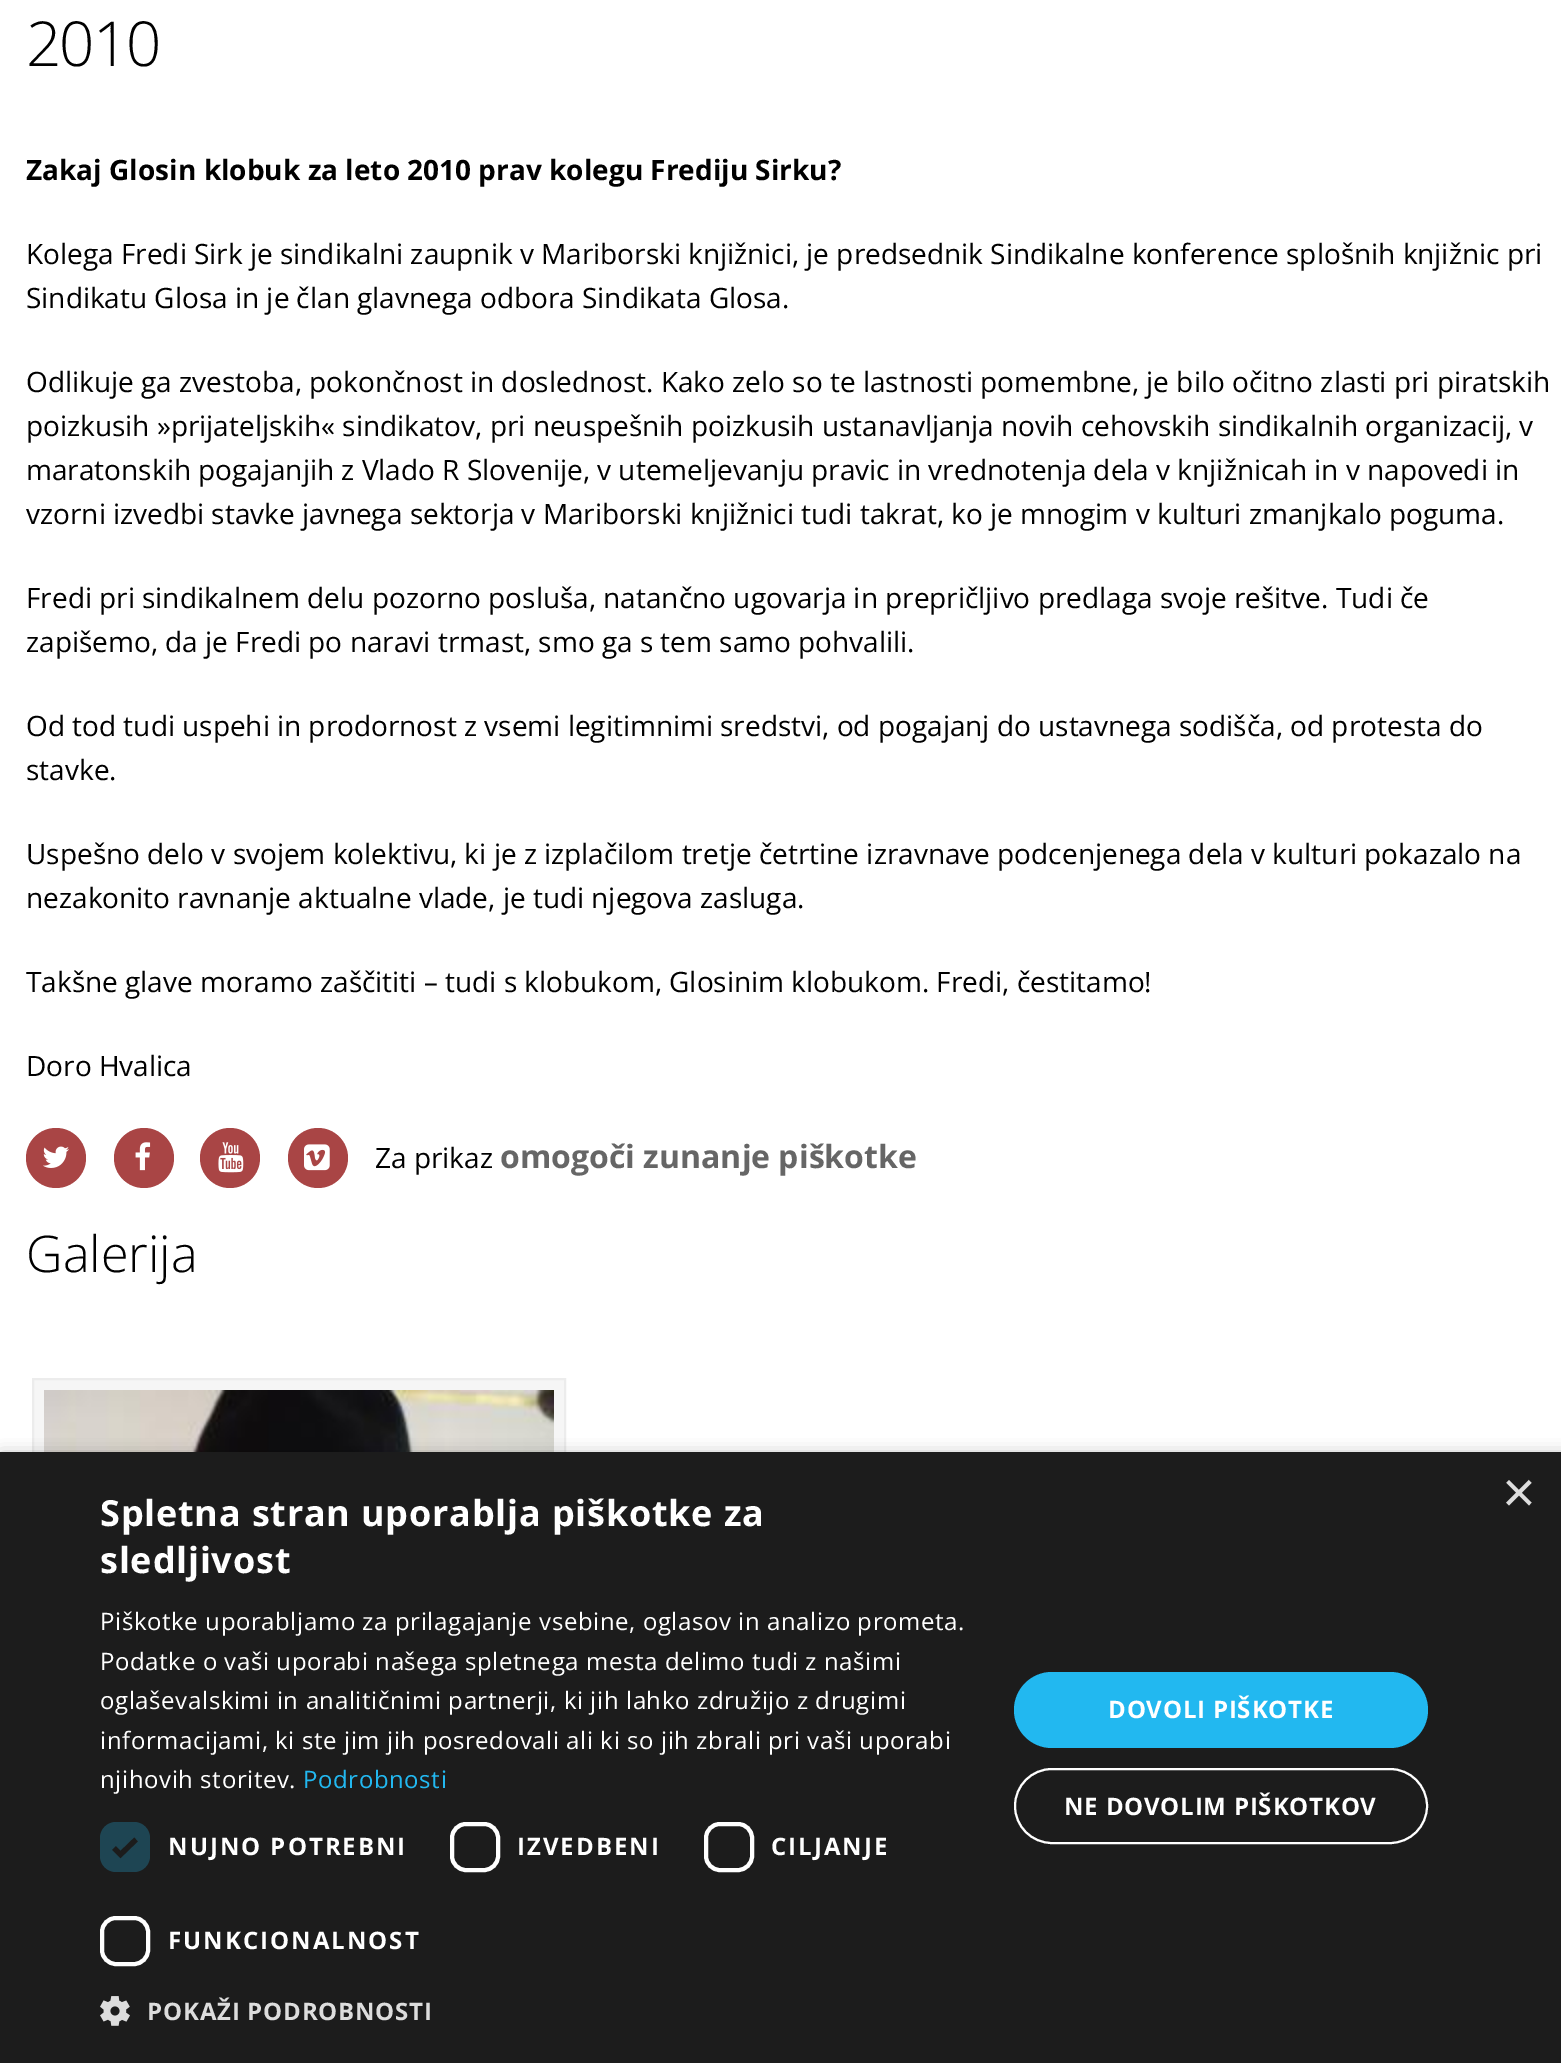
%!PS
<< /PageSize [1561 2063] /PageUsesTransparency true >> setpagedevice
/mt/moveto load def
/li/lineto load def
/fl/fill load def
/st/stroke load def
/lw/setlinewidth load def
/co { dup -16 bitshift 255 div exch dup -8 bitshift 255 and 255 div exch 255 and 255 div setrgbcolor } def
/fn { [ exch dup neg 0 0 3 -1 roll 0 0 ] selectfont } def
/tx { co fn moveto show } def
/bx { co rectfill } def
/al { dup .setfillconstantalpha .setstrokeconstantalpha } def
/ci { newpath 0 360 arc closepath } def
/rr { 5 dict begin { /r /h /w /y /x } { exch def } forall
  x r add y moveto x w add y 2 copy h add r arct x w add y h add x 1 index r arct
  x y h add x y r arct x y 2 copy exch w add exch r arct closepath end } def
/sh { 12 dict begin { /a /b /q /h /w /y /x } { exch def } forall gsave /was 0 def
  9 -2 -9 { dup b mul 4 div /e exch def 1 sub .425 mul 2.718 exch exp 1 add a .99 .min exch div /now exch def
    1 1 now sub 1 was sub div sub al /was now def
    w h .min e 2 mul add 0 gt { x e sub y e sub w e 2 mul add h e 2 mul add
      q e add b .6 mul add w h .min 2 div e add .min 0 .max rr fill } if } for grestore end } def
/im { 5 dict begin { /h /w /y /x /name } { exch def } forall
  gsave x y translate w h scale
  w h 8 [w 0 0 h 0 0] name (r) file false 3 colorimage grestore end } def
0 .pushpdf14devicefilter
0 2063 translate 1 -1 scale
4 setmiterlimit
0 0 1561 2063 16#FFFFFF bx
16#A94545 co
56 1158 30 ci fl
(media/1.raw) 43 1146 26 22 im
144 1158 30 ci fl
(media/2.raw) 135 1142 16 29 im
230 1158 30 ci fl
(media/3.raw) 218 1142 26 31 im
318 1158 30 ci fl
(media/4.raw) 304 1144 26 27 im
34 1380 530 72 16#F6F6F6 bx
16#ECECEC co
2 lw
33 1379 532 532 rectstroke
(media/5.raw) 44 1390 510 62 im
16#000000 co
2 1456 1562 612 0 8 .35 sh
0 1452 1561 611 16#1C1C1C bx
16#1E4553 co
100 1822 50 50 16 rr fl
16#1C1C1C co
5.2 lw
114 1848 mt 120.5 1854.5 li 136 1839.5 li st
16#FFFFFF co
4 lw
452 1824 46 46 14 rr st
706 1824 46 46 14 rr st
102 1918 46 46 14 rr st
(media/6.raw) 100 1996 30 30 im
16#22B8F0 co
1014 1672 414 76 38 rr fl
16#FFFFFF co
2 lw
1015 1769 412 74 37 rr st
/OpenSans-Light 62 fn
16#000000 co
26 66 mt -2 0 (2010) ashow
(Zakaj Glosin klobuk za leto 2010 prav kolegu Frediju Sirku?) 26 180 /OpenSans-Bold 28 16#000000 tx
(Kolega Fredi Sirk je sindikalni zaupnik v Mariborski knjižnici, je predsednik Sindikalne konference splošnih knjižnic pri) 26 264 /OpenSans-Regular 28 16#000000 tx
(Sindikatu Glosa in je član glavnega odbora Sindikata Glosa.) 26 308 /OpenSans-Regular 28 16#000000 tx
(Odlikuje ga zvestoba, pokončnost in doslednost. Kako zelo so te lastnosti pomembne, je bilo očitno zlasti pri piratskih) 26 392 /OpenSans-Regular 28 16#000000 tx
(poizkusih »prijateljskih« sindikatov, pri neuspešnih poizkusih ustanavljanja novih cehovskih sindikalnih organizacij, v) 26 436 /OpenSans-Regular 28 16#000000 tx
(maratonskih pogajanjih z Vlado R Slovenije, v utemeljevanju pravic in vrednotenja dela v knjižnicah in v napovedi in) 26 480 /OpenSans-Regular 28 16#000000 tx
(vzorni izvedbi stavke javnega sektorja v Mariborski knjižnici tudi takrat, ko je mnogim v kulturi zmanjkalo poguma.) 26 524 /OpenSans-Regular 28 16#000000 tx
(Fredi pri sindikalnem delu pozorno posluša, natančno ugovarja in prepričljivo predlaga svoje rešitve. Tudi če) 26 608 /OpenSans-Regular 28 16#000000 tx
(zapišemo, da je Fredi po naravi trmast, smo ga s tem samo pohvalili.) 26 652 /OpenSans-Regular 28 16#000000 tx
(Od tod tudi uspehi in prodornost z vsemi legitimnimi sredstvi, od pogajanj do ustavnega sodišča, od protesta do) 26 736 /OpenSans-Regular 28 16#000000 tx
(stavke.) 26 780 /OpenSans-Regular 28 16#000000 tx
(Uspešno delo v svojem kolektivu, ki je z izplačilom tretje četrtine izravnave podcenjenega dela v kulturi pokazalo na) 26 864 /OpenSans-Regular 28 16#000000 tx
(nezakonito ravnanje aktualne vlade, je tudi njegova zasluga.) 26 908 /OpenSans-Regular 28 16#000000 tx
(Takšne glave moramo zaščititi – tudi s klobukom, Glosinim klobukom. Fredi, čestitamo!) 26 992 /OpenSans-Regular 28 16#000000 tx
(Doro Hvalica) 26 1076 /OpenSans-Regular 28 16#000000 tx
(Za prikaz) 375 1168 /OpenSans-Regular 28 16#000000 tx
(omogoči zunanje piškotke) 500 1168 /OpenSans-Bold 32 16#666666 tx
(Galerija) 26 1272 /OpenSans-Light 50.5 16#000000 tx
(×) 1502 1512 /LiberationSans-Regular 58 16#DDDDDD tx
/OpenSans-Bold 36 fn
16#FFFFFF co
100 1526 mt .8 0 (Spletna stran uporablja piškotke za) ashow
100 1573 mt .8 0 (sledljivost) ashow
/OpenSans-Regular 24 fn
100 1630 mt .6 0 (Piškotke uporabljamo za prilagajanje vsebine, oglasov in analizo prometa.) ashow
100 1670 mt .6 0 (Podatke o vaši uporabi našega spletnega mesta delimo tudi z našimi) ashow
100 1709 mt .6 0 (oglaševalskimi in analitičnimi partnerji, ki jih lahko združijo z drugimi) ashow
100 1749 mt .6 0 (informacijami, ki ste jim jih posredovali ali ki so jih zbrali pri vaši uporabi) ashow
100 1788 mt .6 0 (njihovih storitev.) ashow
16#22B8F0 co
303 1788 mt .6 0 (Podrobnosti) ashow
/OpenSans-Bold 24 fn
16#FFFFFF co
168 1855 mt 2 0 (NUJNO POTREBNI) ashow
517 1855 mt 2 0 (IZVEDBENI) ashow
771 1855 mt 2 0 (CILJANJE) ashow
168 1949 mt 2 0 (FUNKCIONALNOST) ashow
16#DDDDDD co
147 2020 mt .8 0 (POKAŽI PODROBNOSTI) ashow
16#FFFFFF co
1108 1718 mt .8 0 (DOVOLI PIŠKOTKE) ashow
1064 1815 mt .8 0 (NE DOVOLIM PIŠKOTKOV) ashow
.poppdf14devicefilter showpage
